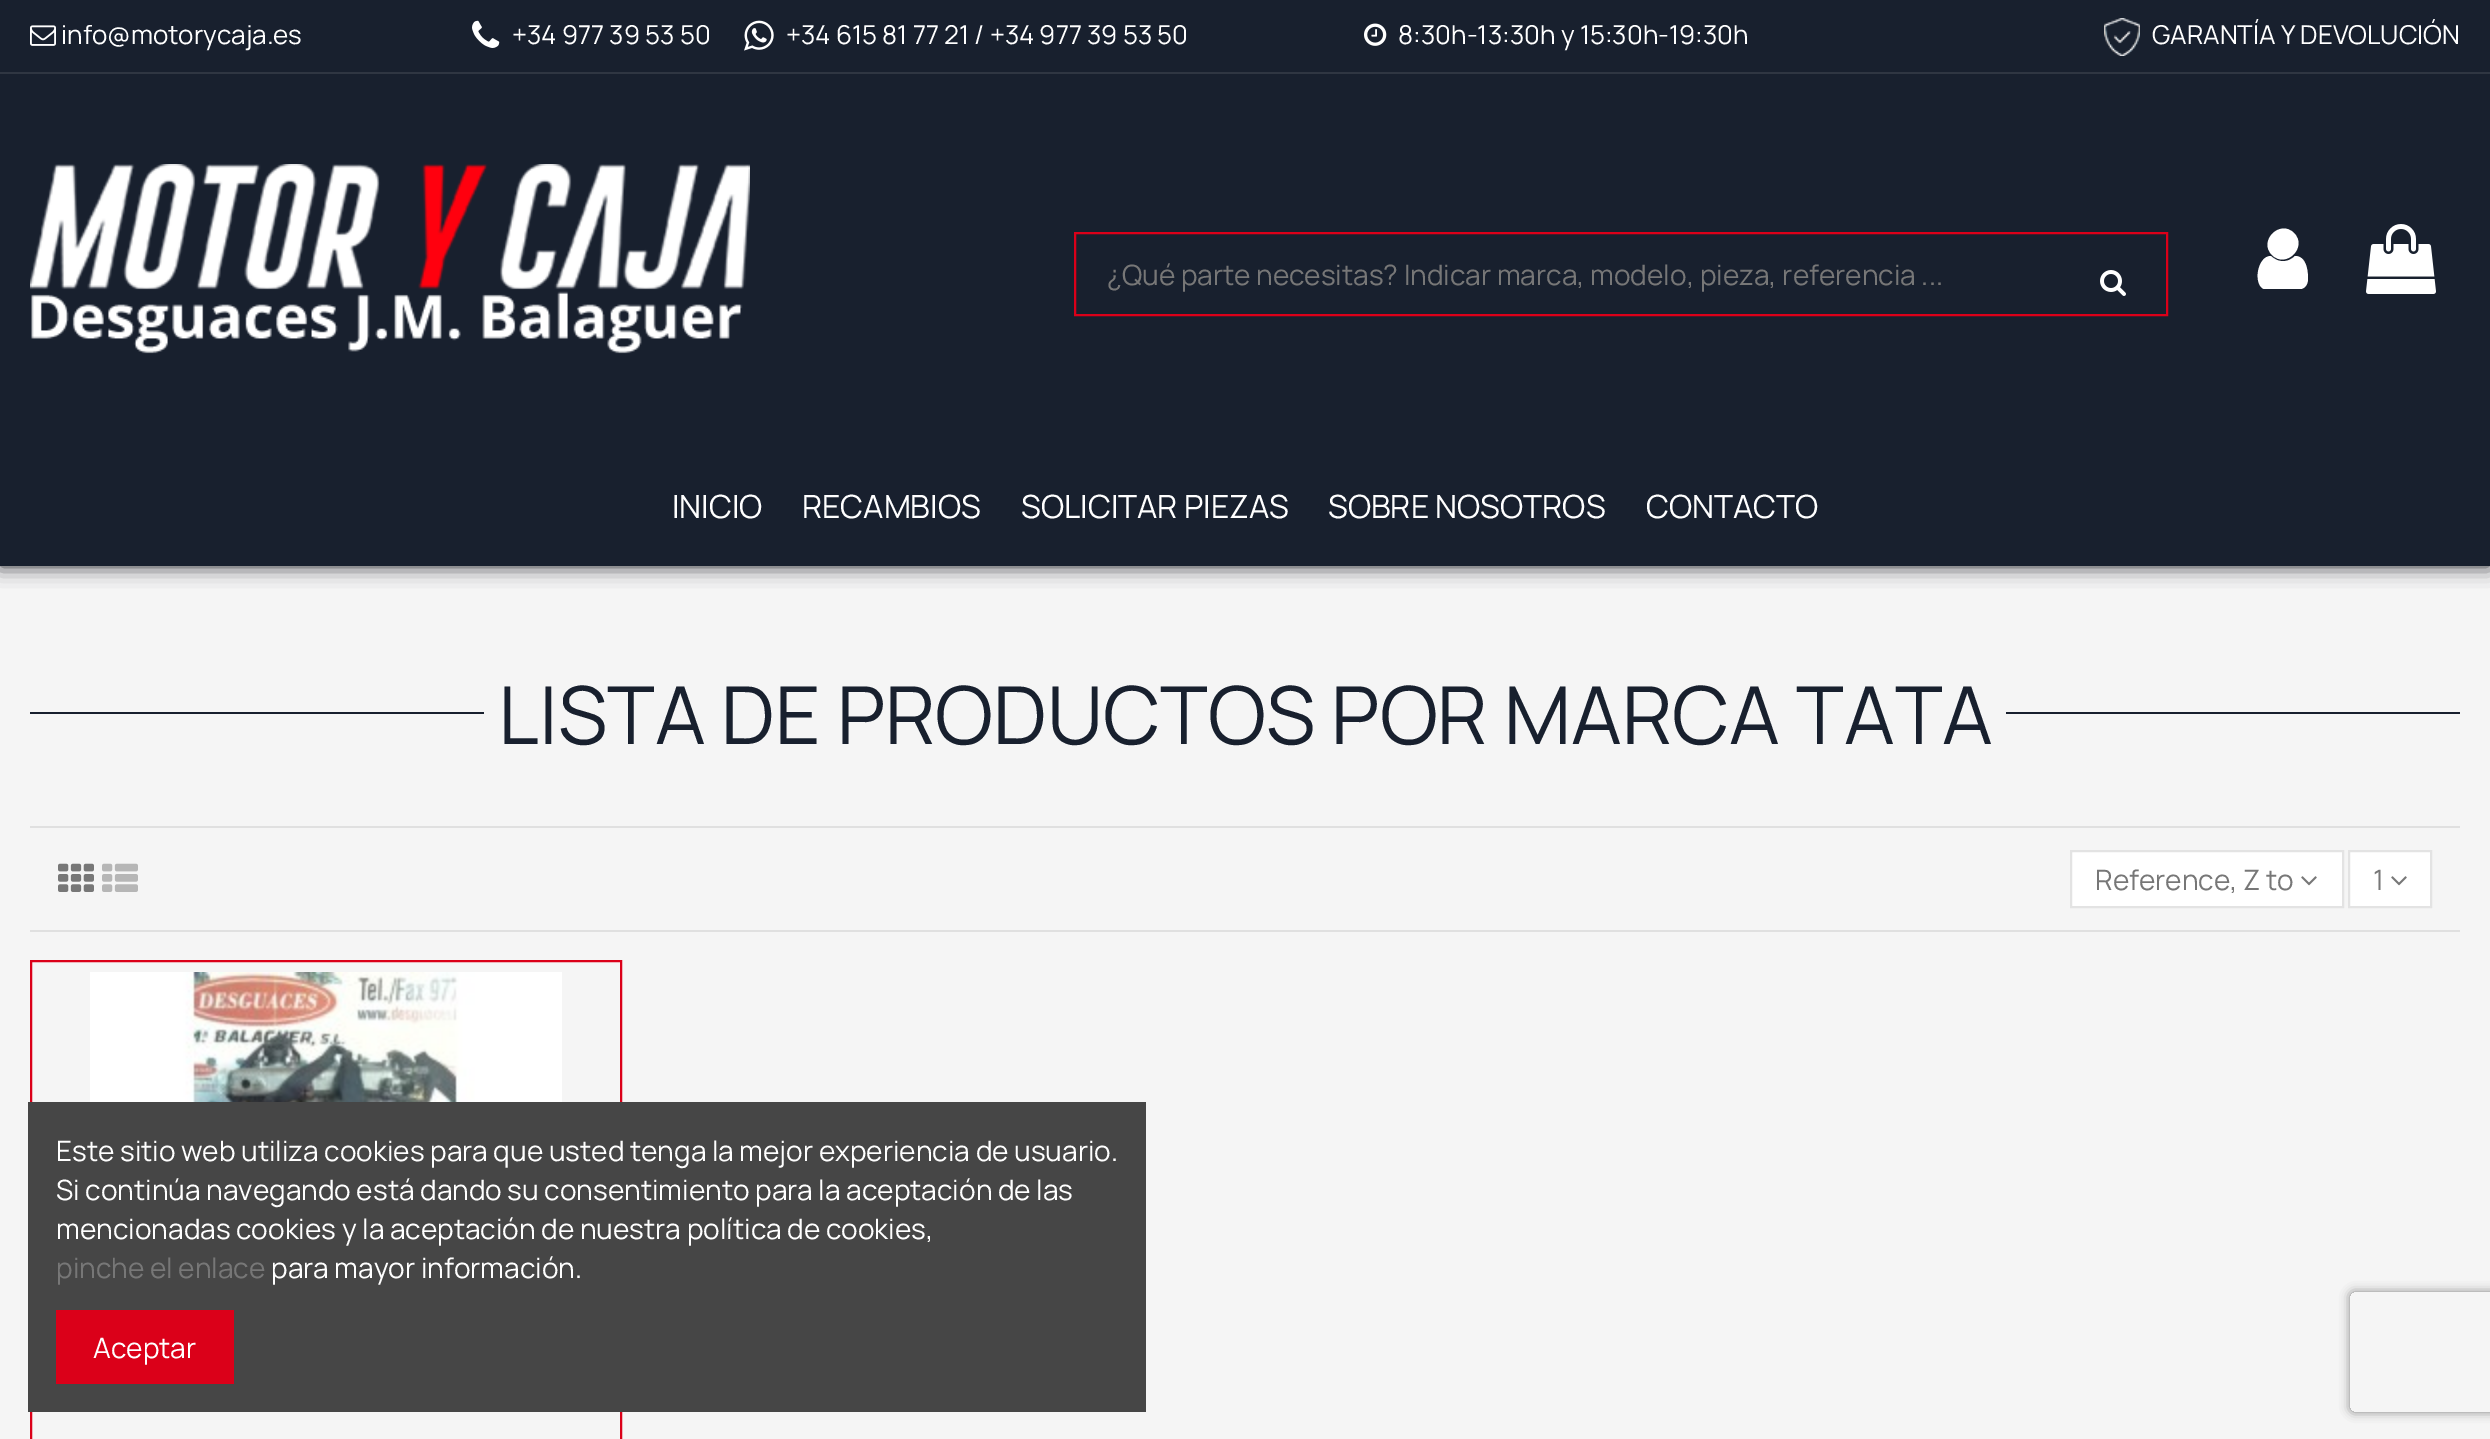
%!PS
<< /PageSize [2490 1439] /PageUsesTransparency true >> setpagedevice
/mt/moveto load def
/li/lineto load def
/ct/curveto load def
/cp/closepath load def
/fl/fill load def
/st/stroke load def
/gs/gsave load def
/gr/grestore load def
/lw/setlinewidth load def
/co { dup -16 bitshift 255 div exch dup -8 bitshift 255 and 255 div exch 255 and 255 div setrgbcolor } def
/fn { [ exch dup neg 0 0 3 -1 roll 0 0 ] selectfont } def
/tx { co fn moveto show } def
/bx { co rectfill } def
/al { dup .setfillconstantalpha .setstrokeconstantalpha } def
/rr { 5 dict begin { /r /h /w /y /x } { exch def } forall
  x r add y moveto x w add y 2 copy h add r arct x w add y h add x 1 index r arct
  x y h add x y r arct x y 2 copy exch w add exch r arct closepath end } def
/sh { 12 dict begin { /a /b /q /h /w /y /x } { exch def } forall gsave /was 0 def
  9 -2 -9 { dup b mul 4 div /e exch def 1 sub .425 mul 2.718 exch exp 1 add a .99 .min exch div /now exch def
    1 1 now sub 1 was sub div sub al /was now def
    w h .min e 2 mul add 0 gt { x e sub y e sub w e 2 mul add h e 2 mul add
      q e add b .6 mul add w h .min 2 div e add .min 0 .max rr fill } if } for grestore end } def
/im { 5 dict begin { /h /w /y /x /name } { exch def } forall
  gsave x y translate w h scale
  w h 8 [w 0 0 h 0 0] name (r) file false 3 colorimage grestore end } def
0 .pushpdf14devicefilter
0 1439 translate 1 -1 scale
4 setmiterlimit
0 0 2490 1439 16#F5F5F5 bx
16#212529 co
0 0 2490 566 0 10 1 sh
0 0 2490 566 16#18202E bx
0 72 2490 2 16#2F3642 bx
(media/1.raw) 30 25 26 21 im
(media/2.raw) 472 20 28 28 im
(media/3.raw) 744 20 30 31 im
(media/4.raw) 1364 23 23 23 im
(media/5.raw) 2104 18 36 38 im
(media/6.raw) 30 164 720 190 im
16#DB0019 co
2 lw
1075 233 1092 82 rectstroke
(media/7.raw) 2100 270 26 26 im
16#FFFFFF co
2308 279 mt 2308 283 2306 288 2301 289 ct 2272 289 li 2264 289 li 2253 285 2257 256 2271 256 ct 2278 263 2288 263 2295 256 ct 2306 256 2308 270 2308 279 ct cp 2294 233 mt 2308 247 2286 269 2272 255 ct 2258 241 2280 219 2294 233 ct cp fl
(media/8.raw) 2366 224 70 70 im
30 712 454 2 16#18202E bx
2006 712 454 2 16#18202E bx
30 826 2430 2 16#E0E0E0 bx
30 930 2430 2 16#E0E0E0 bx
(media/9.raw) 58 863 36 29 im
(media/10.raw) 102 863 36 29 im
16#FFFFFF co
2071 851 mt 2343 851 li 2343 907 li 2071 907 li cp gs fl gr
16#E3E3E3 co
st
(media/11.raw) 2301 876 16 10 im
16#FFFFFF co
2349 851 mt 2431 851 li 2431 907 li 2349 907 li cp gs fl gr
16#E3E3E3 co
st
(media/11.raw) 2391 876 16 10 im
16#DB0019 co
31 961 590 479 rectstroke
(media/12.raw) 90 972 472 130 im
gs
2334 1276 mt 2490 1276 li 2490 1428 li 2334 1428 li cp 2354 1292 mt 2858 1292 li 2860 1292 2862 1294 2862 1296 ct 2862 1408 li 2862 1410 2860 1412 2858 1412 ct 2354 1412 li 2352 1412 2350 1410 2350 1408 ct 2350 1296 li 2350 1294 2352 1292 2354 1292 ct cp eoclip newpath
16#808080 co
2350 1292 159 120 4 5 1 sh
gr
28 1102 1118 310 16#464646 bx
56 1310 178 74 16#DB0019 bx
(info@motorycaja.es) 61 44 /Manrope-ExtraLight 26 16#FFFFFF tx
(+34 977 39 53 50) 512 44 /Manrope-ExtraLight 26 16#FFFFFF tx
(+34 615 81 77 21 / +34 977 39 53 50) 786 44 /Manrope-ExtraLight 26 16#FFFFFF tx
(8:30h-13:30h y 15:30h-19:30h) 1398 44 /Manrope-ExtraLight 26 16#FFFFFF tx
(GARANTÍA Y DEVOLUCIÓN) 2152 44 /Manrope-ExtraLight 26 16#FFFFFF tx
(¿Qué parte necesitas? Indicar marca, modelo, pieza, referencia ...) 1107 285 /Manrope-ExtraLight 28 16#777777 tx
(INICIO) 672 518 /Manrope-ExtraLight 32 16#FFFFFF tx
(RECAMBIOS) 802 518 /Manrope-ExtraLight 32 16#FFFFFF tx
(SOLICITAR PIEZAS) 1021 518 /Manrope-ExtraLight 32 16#FFFFFF tx
(SOBRE NOSOTROS) 1328 518 /Manrope-ExtraLight 32 16#FFFFFF tx
(CONTACTO) 1646 518 /Manrope-ExtraLight 32 16#FFFFFF tx
(LISTA DE PRODUCTOS POR MARCA TATA) 498 744 /Manrope-ExtraLight 80 16#18202E tx
(Reference, Z to) 2095 890 /Manrope-ExtraLight 28 16#777777 tx
(1) 2373 890 /Manrope-ExtraLight 28 16#777777 tx
(Este sitio web utiliza cookies para que usted tenga la mejor experiencia de usuario.) 56 1161 /Manrope-ExtraLight 28 16#FFFFFF tx
(Si continúa navegando está dando su consentimiento para la aceptación de las) 56 1200 /Manrope-ExtraLight 28 16#FFFFFF tx
(mencionadas cookies y la aceptación de nuestra política de cookies,) 56 1239 /Manrope-ExtraLight 28 16#FFFFFF tx
(pinche el enlace) 56 1278 /Manrope-ExtraLight 28 16#777777 tx
(para mayor información.) 271 1278 /Manrope-ExtraLight 28 16#FFFFFF tx
(Aceptar) 93 1358 /Manrope-ExtraLight 28 16#FFFFFF tx
.poppdf14devicefilter showpage
